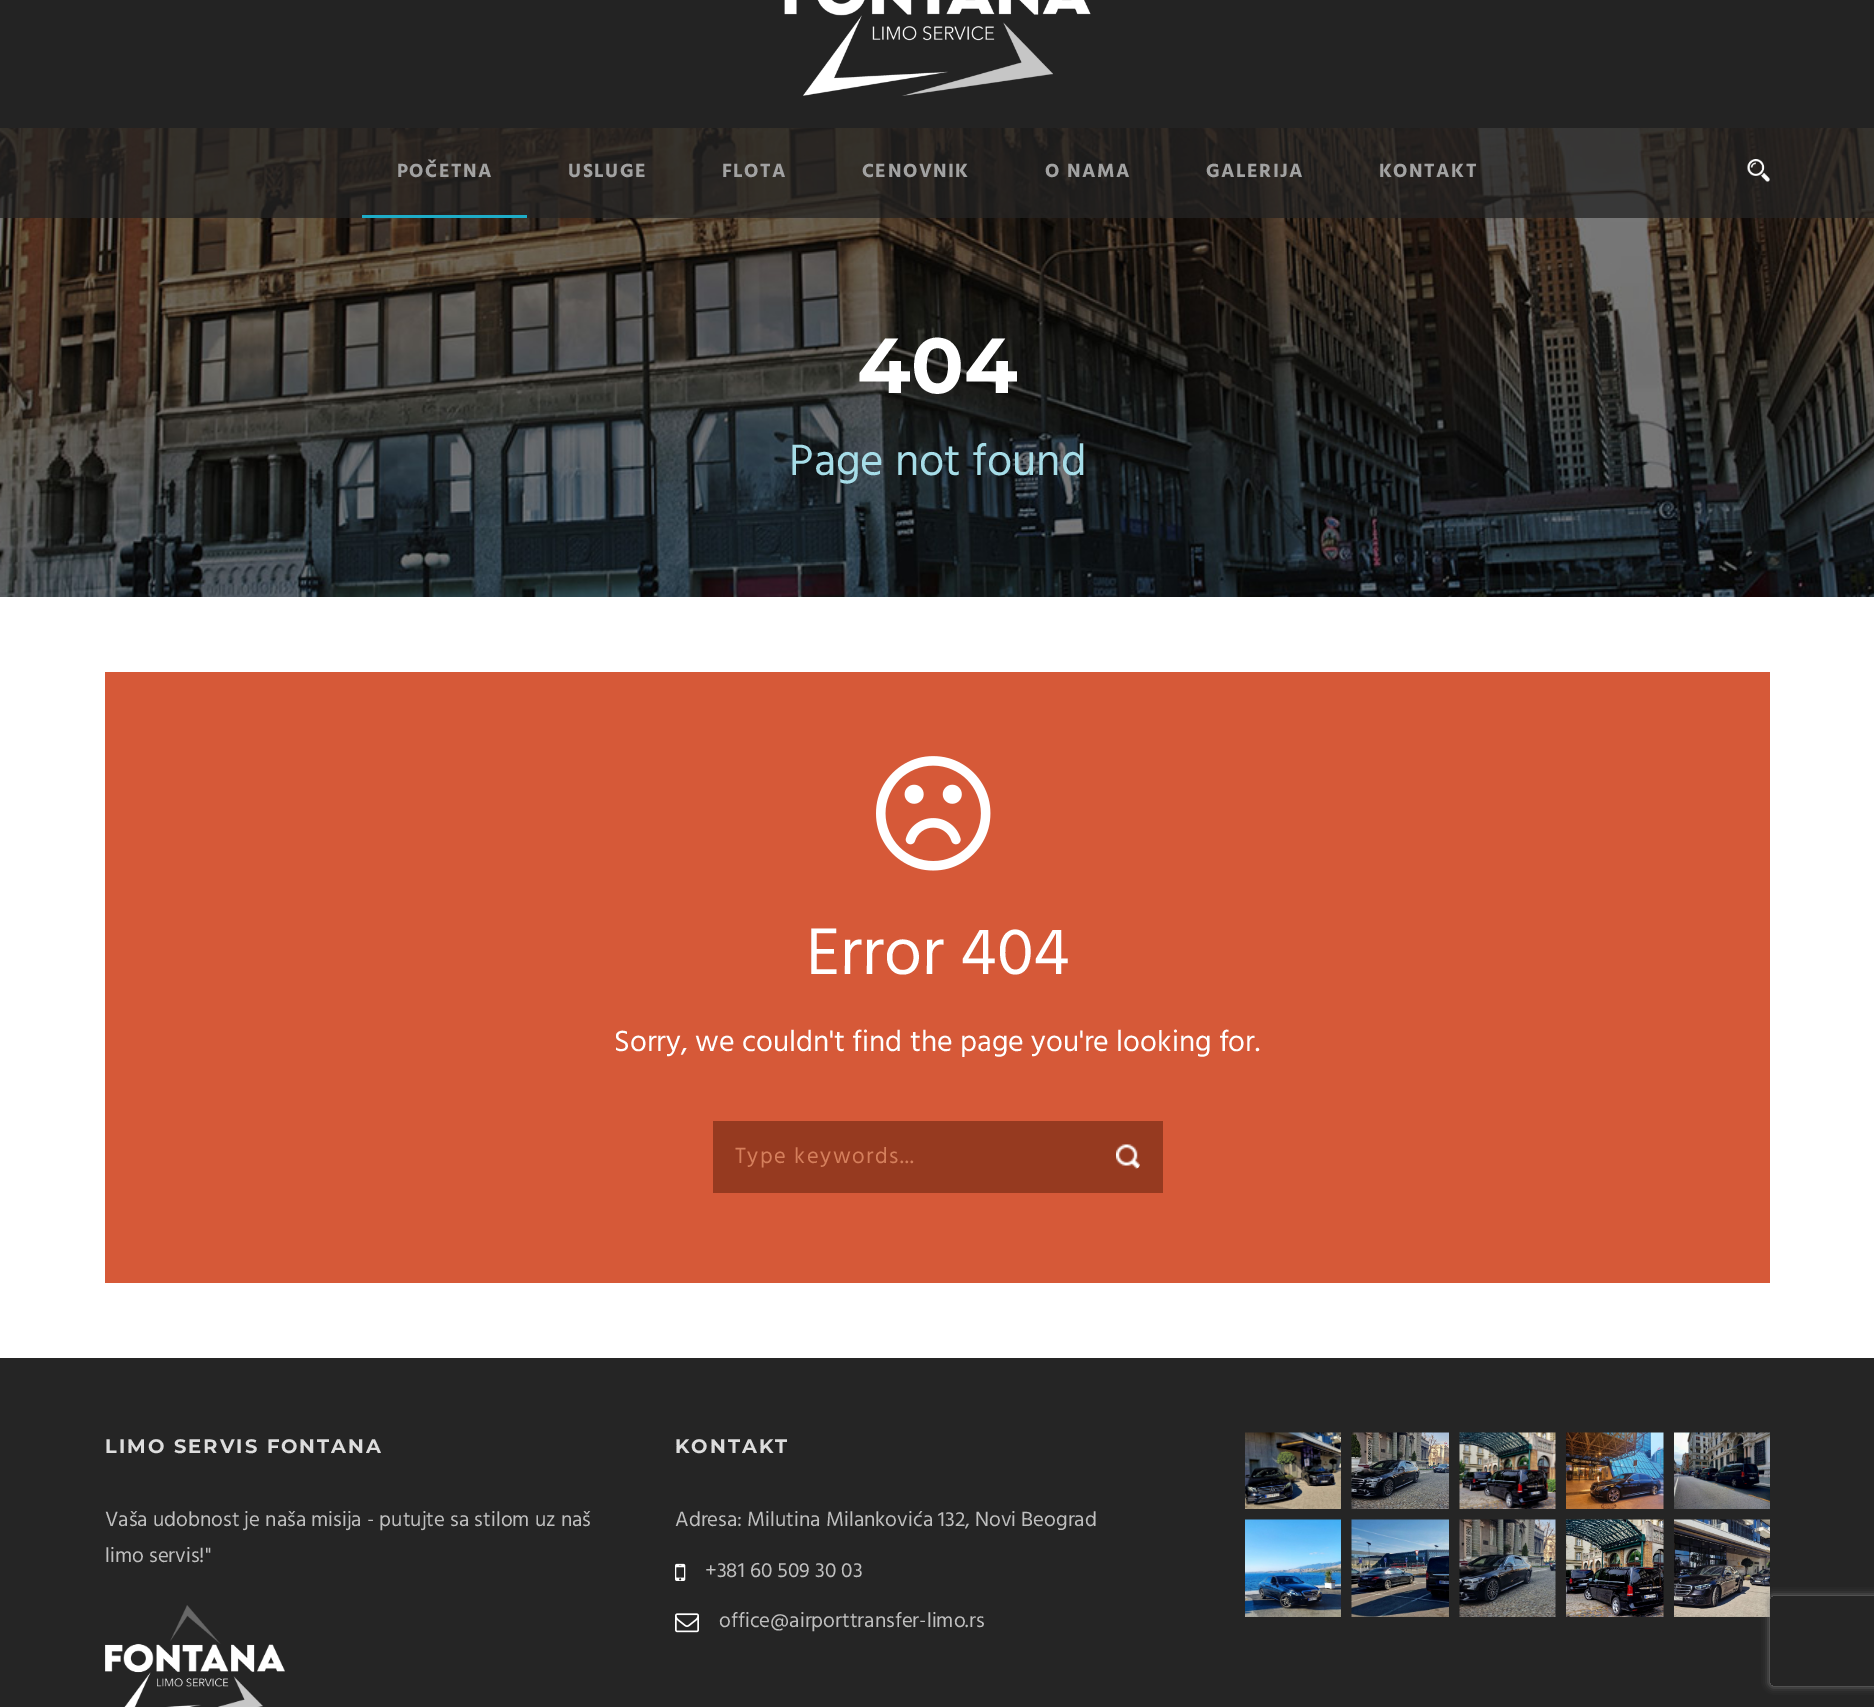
%!PS
<< /PageSize [1874 1707] /PageUsesTransparency true >> setpagedevice
/mt/moveto load def
/li/lineto load def
/ct/curveto load def
/cp/closepath load def
/gs/gsave load def
/gr/grestore load def
/co { dup -16 bitshift 255 div exch dup -8 bitshift 255 and 255 div exch 255 and 255 div setrgbcolor } def
/fn { [ exch dup neg 0 0 3 -1 roll 0 0 ] selectfont } def
/tx { co fn moveto show } def
/bx { co rectfill } def
/al { dup .setfillconstantalpha .setstrokeconstantalpha } def
/rr { 5 dict begin { /r /h /w /y /x } { exch def } forall
  x r add y moveto x w add y 2 copy h add r arct x w add y h add x 1 index r arct
  x y h add x y r arct x y 2 copy exch w add exch r arct closepath end } def
/sh { 12 dict begin { /a /b /q /h /w /y /x } { exch def } forall gsave /was 0 def
  9 -2 -9 { dup b mul 4 div /e exch def 1 sub .425 mul 2.718 exch exp 1 add a .99 .min exch div /now exch def
    1 1 now sub 1 was sub div sub al /was now def
    w h .min e 2 mul add 0 gt { x e sub y e sub w e 2 mul add h e 2 mul add
      q e add b .6 mul add w h .min 2 div e add .min 0 .max rr fill } if } for grestore end } def
/im { 5 dict begin { /h /w /y /x /name } { exch def } forall
  gsave x y translate w h scale
  w h 8 [w 0 0 h 0 0] name (r) file false 3 colorimage grestore end } def
0 .pushpdf14devicefilter
0 1707 translate 1 -1 scale
4 setmiterlimit
0 0 1874 1707 16#FFFFFF bx
0 0 1874 128 16#232323 bx
(media/1.raw) 784 0 307 96 im
(media/3.raw) 0 128 1874 469 im
0.75 al
0 128 1874 90 16#232323 bx
1 al
(media/2.raw) 1747 159 23 23 im
362 215 165 3 16#1EACC7 bx
105 672 1665 611 16#D65938 bx
(media/4.raw) 876 756 115 115 im
713 1121 450 72 16#963A20 bx
(media/5.raw) 1116 1144 24 25 im
0 1358 1874 349 16#252525 bx
(media/6.raw) 105 1605 180 102 im
(media/7.raw) 675 1563 11 18 im
(media/8.raw) 675 1613 24 20 im
(media/9.raw) 1245 1432 96 77 im
(media/10.raw) 1351 1432 98 77 im
(media/11.raw) 1459 1432 97 77 im
(media/12.raw) 1566 1432 98 77 im
(media/13.raw) 1674 1432 96 77 im
(media/14.raw) 1245 1519 96 98 im
(media/15.raw) 1351 1519 98 98 im
(media/16.raw) 1459 1519 97 98 im
(media/17.raw) 1566 1519 98 98 im
(media/18.raw) 1674 1519 96 98 im
gs
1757 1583 mt 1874 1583 li 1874 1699 li 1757 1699 li cp 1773 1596 mt 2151 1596 li 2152.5 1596 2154 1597.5 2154 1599 ct 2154 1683 li 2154 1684.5 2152.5 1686 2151 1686 ct 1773 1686 li 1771.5 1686 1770 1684.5 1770 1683 ct 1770 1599 li 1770 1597.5 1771.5 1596 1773 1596 ct cp eoclip newpath
16#808080 co
1770 1596 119 90 3 4 1 sh
gr
/Hind-Bold 19.5 fn
16#A2A2A2 co
397 177 mt 1.5 0 (POČETNA) ashow
568 177 mt 1.5 0 (USLUGE) ashow
722 177 mt 1.5 0 (FLOTA) ashow
862 177 mt 1.5 0 (CENOVNIK) ashow
1045 177 mt 1.5 0 (O NAMA) ashow
1206 177 mt 1.5 0 (GALERIJA) ashow
1379 177 mt 1.5 0 (KONTAKT) ashow
(404) 857 393 /Montserrat-Bold 78 16#FFFFFF tx
(Page not found) 789 475 /Hind-Regular 45 16#A6DDE8 tx
(Error 404) 806 974 /Hind-Regular 67.5 16#FFFFFF tx
(Sorry, we couldn't find the page you're looking for.) 614 1051 /Hind-Regular 30 16#FFFFFF tx
/Hind-Regular 22.5 fn
16#D57F5C co
735 1163 mt 1.5 0 (Type keywords...) ashow
/Montserrat-Bold 19.5 fn
16#DDDDDD co
105 1453 mt 2 0 (LIMO SERVIS FONTANA) ashow
(Vaša udobnost je naša misija - putujte sa stilom uz naš) 105 1526 /Hind-Regular 21 16#BFBFBF tx
(limo servis!") 105 1562 /Hind-Regular 21 16#BFBFBF tx
/Montserrat-Bold 19.5 fn
16#DDDDDD co
675 1453 mt 2 0 (KONTAKT) ashow
(Adresa: Milutina Milankovića 132, Novi Beograd) 675 1526 /Hind-Regular 21 16#BFBFBF tx
(+381 60 509 30 03) 705 1577 /Hind-Regular 21 16#BFBFBF tx
(office@airporttransfer-limo.rs) 719 1627 /Hind-Regular 21 16#BFBFBF tx
.poppdf14devicefilter showpage
